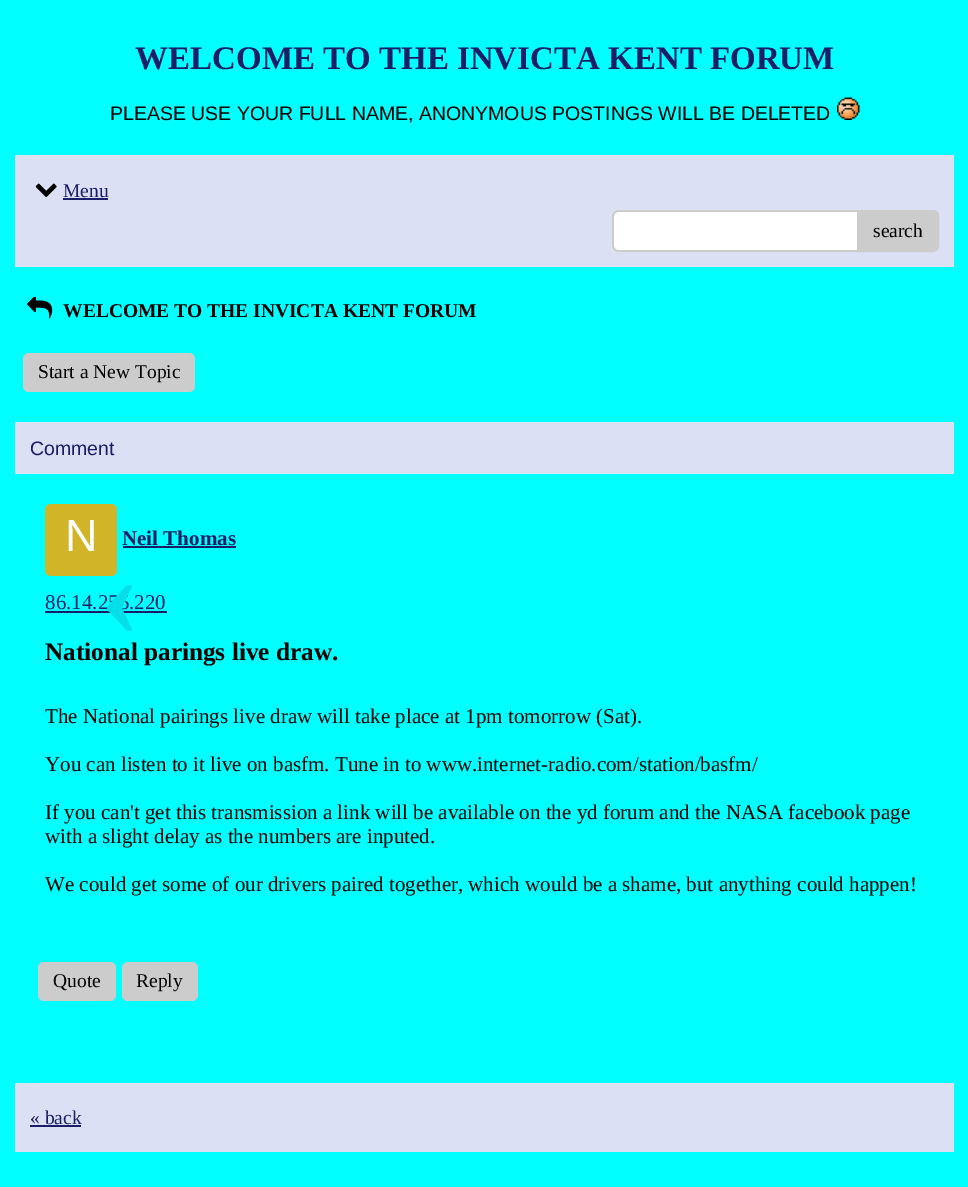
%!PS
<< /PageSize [968 1187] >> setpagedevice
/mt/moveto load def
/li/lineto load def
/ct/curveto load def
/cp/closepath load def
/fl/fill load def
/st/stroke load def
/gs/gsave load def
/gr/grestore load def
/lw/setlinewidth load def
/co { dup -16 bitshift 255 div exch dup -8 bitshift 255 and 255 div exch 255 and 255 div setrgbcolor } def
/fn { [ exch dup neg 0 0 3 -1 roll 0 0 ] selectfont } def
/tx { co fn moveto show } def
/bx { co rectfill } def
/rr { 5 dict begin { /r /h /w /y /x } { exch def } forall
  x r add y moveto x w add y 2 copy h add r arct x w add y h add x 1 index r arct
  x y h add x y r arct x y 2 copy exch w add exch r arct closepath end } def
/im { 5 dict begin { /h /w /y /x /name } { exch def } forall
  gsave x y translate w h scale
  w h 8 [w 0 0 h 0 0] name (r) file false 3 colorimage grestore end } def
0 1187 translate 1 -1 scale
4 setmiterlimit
0 0 968 1187 16#00FFFF bx
(media/1.raw) 837 97 23 23 im
15 155 939 112 16#DBE0F5 bx
(media/2.raw) 35 183 22 14 im
63 198 45 2 16#191E66 bx
16#FFFFFF co
612 210 312 42 6 rr fl
16#CCCCCC co
618 210 mt 918 210 li 921 210 924 213 924 216 ct 924 246 li 924 249 921 252 918 252 ct 618 252 li 615 252 612 249 612 246 ct 612 216 li 612 213 615 210 618 210 ct cp 618 212 mt 918 212 li 921 212 924 214 924 216 ct 924 246 li 924 248 921 250 918 250 ct 618 250 li 616 250 614 248 614 246 ct 614 216 li 614 214 616 212 618 212 ct cp eofill
858 211 mt 933 211 li 936 211 938 213 938 216 ct 938 246 li 938 249 936 251 933 251 ct 858 251 li cp gs fl gr
2 lw
st
(media/3.raw) 27 297 26 22 im
23 353 172 39 6 rr fl
15 422 939 52 16#DBE0F5 bx
16#D2B428 co
45 504 72 72 6 rr fl
123 546 113 2 16#191E66 bx
45 611 122 2 16#191E66 bx
16#CCCCCC co
38 962 78 39 6 rr fl
122 962 76 39 6 rr fl
15 1083 939 69 16#DBE0F5 bx
30 1125 51 2 16#191E66 bx
(WELCOME TO THE INVICTA KENT FORUM) 135 69 /LiberationSerif-Bold 33 16#191E66 tx
(PLEASE USE YOUR FULL NAME, ANONYMOUS POSTINGS WILL BE DELETED) 110 120 /LiberationSans-Regular 19.5 16#000000 tx
(Menu) 63 197 /LiberationSerif-Regular 19.5 16#191E66 tx
(search) 873 237 /LiberationSerif-Regular 19.5 16#000000 tx
(WELCOME TO THE INVICTA KENT FORUM) 63 317 /LiberationSerif-Bold 19.5 16#000000 tx
(Start a New Topic) 38 378 /LiberationSerif-Regular 19.5 16#000000 tx
(Comment) 30 455 /LiberationSans-Regular 19.5 16#191E66 tx
(N) 65 551 /LiberationSans-Regular 45 16#FFFFFF tx
(Neil Thomas) 122 545 /LiberationSerif-Bold 21 16#191E66 tx
(86.14.255.220) 45 609 /LiberationSerif-Regular 21 16#191E66 tx
(National parings live draw.) 45 660 /LiberationSerif-Bold 25.25 16#000000 tx
(Quote) 53 987 /LiberationSerif-Regular 19.5 16#000000 tx
(Reply) 136 987 /LiberationSerif-Regular 19.5 16#000000 tx
(The National pairings live draw will take place at 1pm tomorrow \(Sat\).) 45 723 /LiberationSerif-Regular 21 16#000000 tx
(You can listen to it live on basfm. Tune in to www.internet-radio.com/station/basfm/) 45 771 /LiberationSerif-Regular 21 16#000000 tx
(If you can't get this transmission a link will be available on the yd forum and the NASA facebook page) 45 819 /LiberationSerif-Regular 21 16#000000 tx
(with a slight delay as the numbers are inputed.) 45 843 /LiberationSerif-Regular 21 16#000000 tx
(We could get some of our drivers paired together, which would be a shame, but anything could happen!) 45 891 /LiberationSerif-Regular 21 16#000000 tx
(‹) 100 635 /LiberationSerif-Bold 120 16#04DEE9 tx
(« back) 30 1124 /LiberationSerif-Regular 19.5 16#191E66 tx
showpage
